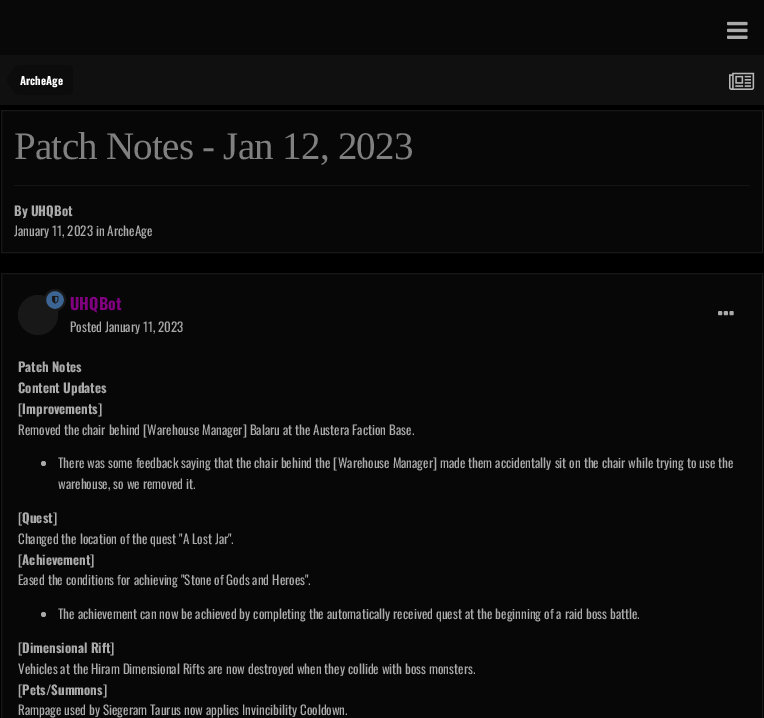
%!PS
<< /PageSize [764 718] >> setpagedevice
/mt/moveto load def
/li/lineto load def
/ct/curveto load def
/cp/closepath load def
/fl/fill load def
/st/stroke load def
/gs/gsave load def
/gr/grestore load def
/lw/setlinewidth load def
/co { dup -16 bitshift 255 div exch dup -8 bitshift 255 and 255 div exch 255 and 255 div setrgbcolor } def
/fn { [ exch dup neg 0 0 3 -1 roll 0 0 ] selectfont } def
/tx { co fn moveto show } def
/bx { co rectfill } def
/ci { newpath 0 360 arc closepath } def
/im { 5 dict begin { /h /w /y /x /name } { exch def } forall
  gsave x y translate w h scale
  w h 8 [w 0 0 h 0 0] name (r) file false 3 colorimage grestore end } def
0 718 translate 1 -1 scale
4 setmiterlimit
0 0 764 718 16#000000 bx
0 0 764 55 16#080808 bx
(media/1.raw) 727 21 21 18 im
0 55 764 50 16#101010 bx
16#0C0C0C co
20 65 mt 68 65 li 71 65 73 67 73 70 ct 73 90 li 73 93 71 95 68 95 ct 20 95 li cp fl
20 80 mt 20 95 li 15.5 95 13.5 90.5 11 87 ct 9.5 85 7 83 7 80 ct cp 20 80 mt 7 80 li 7 77 9.5 75 11 73 ct 13.5 69.5 15.5 65 20 65 ct cp fl
(media/2.raw) 729 72 26 18 im
16#070707 co
1.5 110.5 mt 762.5 110.5 li 762.5 252.5 li 1.5 252.5 li cp gs fl gr
16#181818 co
st
14 185 736 1 16#141414 bx
16#070707 co
1.5 273.5 mt 762.5 273.5 li 762.5 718.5 li 1.5 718.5 li cp gs fl gr
16#181818 co
st
38 315 20 ci fl
16#3D6594 co
55 300 10 ci gs fl gr
16#181818 co
2 lw
st
(media/3.raw) 52 295 7 9 im
(media/4.raw) 718 311 16 5 im
16#AAAAAA co
43.5 463.5 2.5 ci fl
43.5 614.5 2.5 ci fl
(ArcheAge) 20 85 /Oswald-Bold 11 16#FFFFFF tx
/LiberationSerif-Regular 39 fn
16#808080 co
14 159 mt -.75 0 (Patch Notes - Jan 12, 2023) ashow
(By UHQBot) 14 216 /Oswald-Bold 13 16#AAAAAA tx
(January 11, 2023 in ArcheAge) 14 236 /Oswald-Regular 13 16#AAAAAA tx
(UHQBot) 70 310 /Oswald-Bold 16 16#800080 tx
(Posted January 11, 2023) 70 332 /Oswald-Regular 13 16#AAAAAA tx
(Patch Notes) 18 372 /Oswald-Bold 13 16#AAAAAA tx
(Content Updates) 18 393 /Oswald-Bold 13 16#AAAAAA tx
([Improvements]) 18 414 /Oswald-Bold 13 16#AAAAAA tx
(Removed the chair behind [Warehouse Manager] Balaru at the Austera Faction Base.) 18 435 /Oswald-Regular 13 16#AAAAAA tx
(There was some feedback saying that the chair behind the [Warehouse Manager] made them accidentally sit on the chair while trying to use the) 58 468 /Oswald-Regular 13 16#AAAAAA tx
(warehouse, so we removed it.) 58 489 /Oswald-Regular 13 16#AAAAAA tx
([Quest]) 18 523 /Oswald-Bold 13 16#AAAAAA tx
(Changed the location of the quest "A Lost Jar".) 18 544 /Oswald-Regular 13 16#AAAAAA tx
([Achievement]) 18 565 /Oswald-Bold 13 16#AAAAAA tx
(Eased the conditions for achieving "Stone of Gods and Heroes".) 18 585 /Oswald-Regular 13 16#AAAAAA tx
(The achievement can now be achieved by completing the automatically received quest at the beginning of a raid boss battle.) 58 619 /Oswald-Regular 13 16#AAAAAA tx
([Dimensional Rift]) 18 653 /Oswald-Bold 13 16#AAAAAA tx
(Vehicles at the Hiram Dimensional Rifts are now destroyed when they collide with boss monsters.) 18 674 /Oswald-Regular 13 16#AAAAAA tx
([Pets/Summons]) 18 695 /Oswald-Bold 13 16#AAAAAA tx
(Rampage used by Siegeram Taurus now applies Invincibility Cooldown.) 18 715 /Oswald-Regular 13 16#AAAAAA tx
showpage
